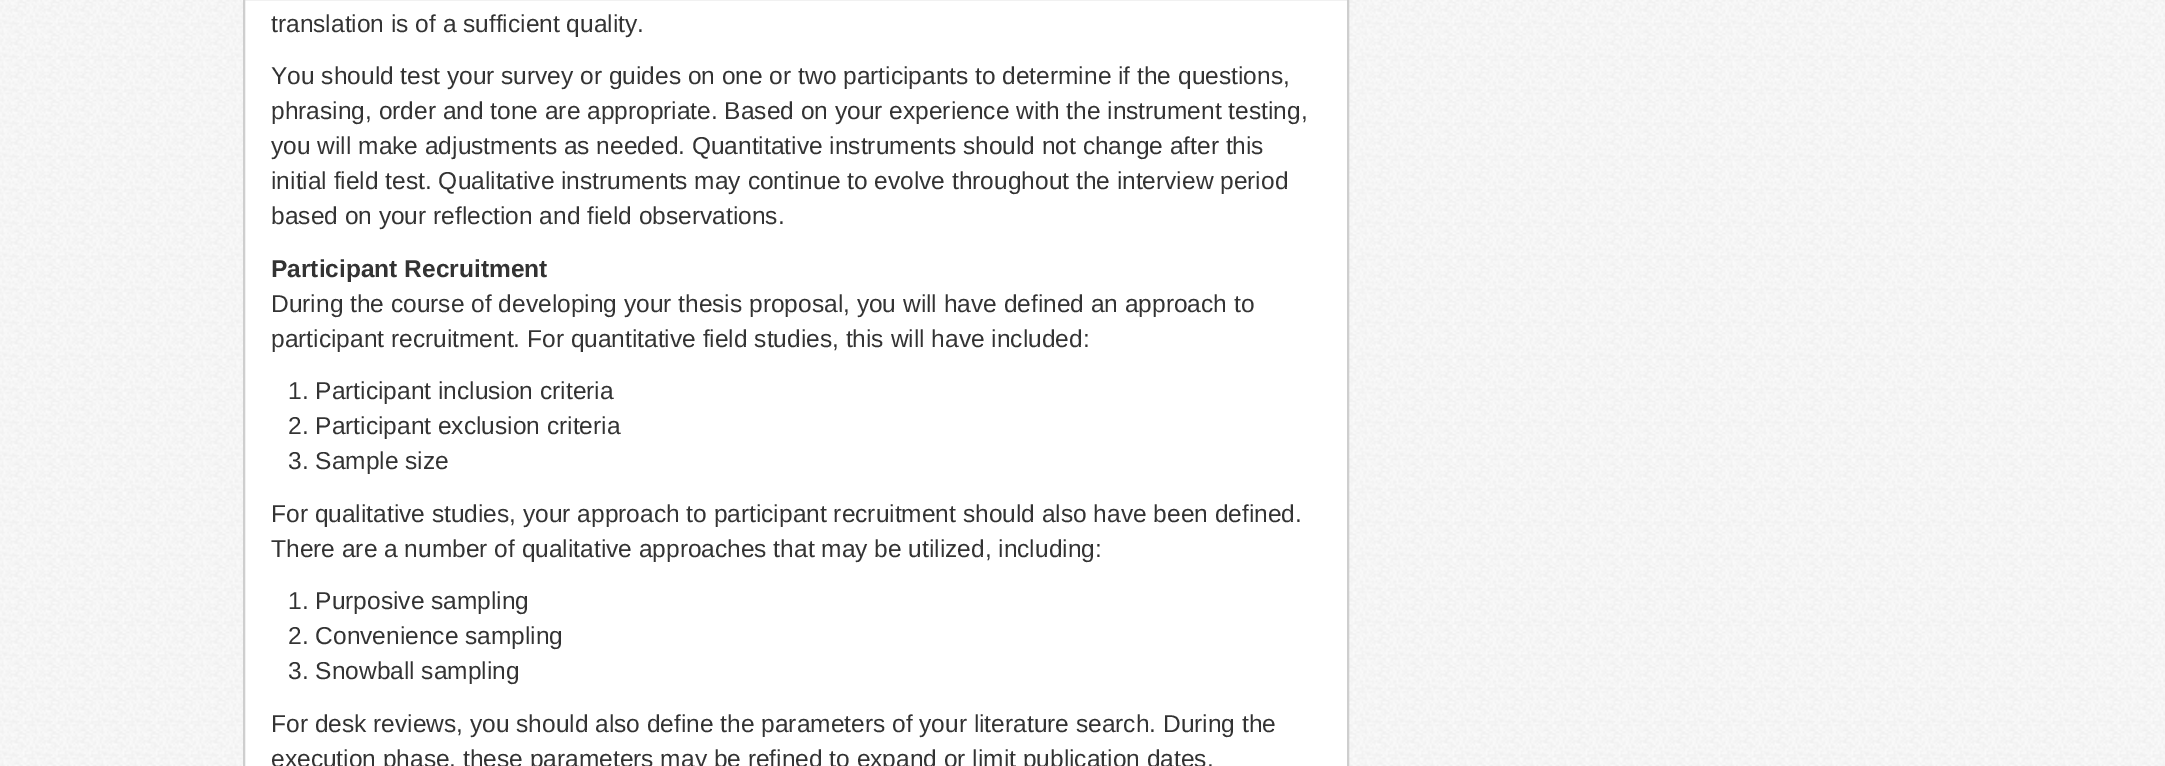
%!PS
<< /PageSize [2165 766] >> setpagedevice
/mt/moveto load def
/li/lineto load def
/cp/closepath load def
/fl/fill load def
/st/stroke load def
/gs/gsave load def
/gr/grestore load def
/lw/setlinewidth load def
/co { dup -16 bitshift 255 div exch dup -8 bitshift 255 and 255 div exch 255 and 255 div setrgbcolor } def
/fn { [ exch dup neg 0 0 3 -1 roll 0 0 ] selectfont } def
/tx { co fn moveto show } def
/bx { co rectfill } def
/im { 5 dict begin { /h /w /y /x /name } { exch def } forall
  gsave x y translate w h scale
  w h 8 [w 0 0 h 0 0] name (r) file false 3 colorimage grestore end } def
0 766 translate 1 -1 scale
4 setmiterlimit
0 0 2165 766 16#FFFFFF bx
(media/1.raw) 0 0 2165 766 im
244 -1 mt 1348 -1 li 1348 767 li 244 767 li cp gs fl gr
16#CECECE co
2 lw
st
(translation is of a sufficient quality.) 271 32 /LiberationSans-Regular 24.5 16#333333 tx
(You should test your survey or guides on one or two participants to determine if the questions,) 271 84 /LiberationSans-Regular 24.5 16#333333 tx
(phrasing, order and tone are appropriate. Based on your experience with the instrument testing,) 271 119 /LiberationSans-Regular 24.5 16#333333 tx
(you will make adjustments as needed. Quantitative instruments should not change after this) 271 154 /LiberationSans-Regular 24.5 16#333333 tx
(initial field test. Qualitative instruments may continue to evolve throughout the interview period) 271 189 /LiberationSans-Regular 24.5 16#333333 tx
(based on your reflection and field observations.) 271 224 /LiberationSans-Regular 24.5 16#333333 tx
(Participant Recruitment) 271 277 /LiberationSans-Bold 24.5 16#333333 tx
(During the course of developing your thesis proposal, you will have defined an approach to) 271 312 /LiberationSans-Regular 24.5 16#333333 tx
(participant recruitment. For quantitative field studies, this will have included:) 271 347 /LiberationSans-Regular 24.5 16#333333 tx
(1. Participant inclusion criteria) 288 399 /LiberationSans-Regular 24.5 16#333333 tx
(2. Participant exclusion criteria) 288 434 /LiberationSans-Regular 24.5 16#333333 tx
(3. Sample size) 288 469 /LiberationSans-Regular 24.5 16#333333 tx
(For qualitative studies, your approach to participant recruitment should also have been defined.) 271 522 /LiberationSans-Regular 24.5 16#333333 tx
(There are a number of qualitative approaches that may be utilized, including:) 271 557 /LiberationSans-Regular 24.5 16#333333 tx
(1. Purposive sampling) 288 609 /LiberationSans-Regular 24.5 16#333333 tx
(2. Convenience sampling) 288 644 /LiberationSans-Regular 24.5 16#333333 tx
(3. Snowball sampling) 288 679 /LiberationSans-Regular 24.5 16#333333 tx
(For desk reviews, you should also define the parameters of your literature search. During the) 271 732 /LiberationSans-Regular 24.5 16#333333 tx
(execution phase, these parameters may be refined to expand or limit publication dates,) 271 767 /LiberationSans-Regular 24.5 16#333333 tx
showpage
